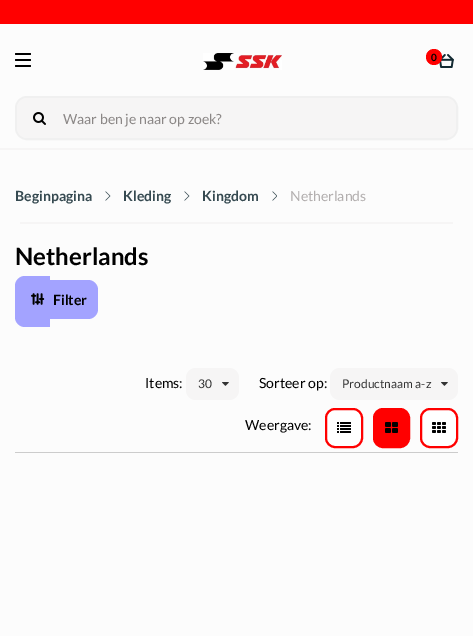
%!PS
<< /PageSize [473 636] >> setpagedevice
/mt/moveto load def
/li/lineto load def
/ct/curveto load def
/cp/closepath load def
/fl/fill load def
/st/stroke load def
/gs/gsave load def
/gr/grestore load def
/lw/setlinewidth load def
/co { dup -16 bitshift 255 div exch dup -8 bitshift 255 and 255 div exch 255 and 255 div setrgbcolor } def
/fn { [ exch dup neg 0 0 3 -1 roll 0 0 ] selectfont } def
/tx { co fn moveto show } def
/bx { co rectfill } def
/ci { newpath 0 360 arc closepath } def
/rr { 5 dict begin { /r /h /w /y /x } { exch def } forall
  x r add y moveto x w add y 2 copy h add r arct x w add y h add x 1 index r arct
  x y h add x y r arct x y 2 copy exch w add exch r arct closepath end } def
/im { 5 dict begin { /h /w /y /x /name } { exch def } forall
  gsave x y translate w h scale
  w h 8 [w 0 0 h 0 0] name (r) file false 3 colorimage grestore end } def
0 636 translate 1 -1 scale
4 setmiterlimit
0 0 473 636 16#FCFCFC bx
0 0 473 24 16#FF0000 bx
16#000000 co
15 53 16 2 1 rr fl
15 59 16 2 1 rr fl
15 65 16 2 1 rr fl
(media/1.raw) 203 53 79 17 im
(media/2.raw) 439 54 15 14 im
16#FF0000 co
434 57 8 ci fl
0 148 473 2 16#F6F5F5 bx
16#F0F0F0 co
2 lw
16 97 441 42 11 rr st
16#F6F5F5 co
27 98 mt 61 98 li 61 138 li 27 138 li 21.5 138 17 133.5 17 128 ct 17 108 li 17 102.5 21.5 98 27 98 ct cp fl
(media/3.raw) 33 112 13 13 im
61 98 mt 446 98 li 451.5 98 456 102.5 456 108 ct 456 128 li 456 133.5 451.5 138 446 138 ct 61 138 li cp fl
20 222 433 2 16#F6F5F5 bx
(media/4.raw) 105 191 6 10 im
(media/4.raw) 184 191 6 10 im
(media/5.raw) 272 191 5 10 im
16#A3A3FF co
25 276 mt 50 276 li 50 327 li 25 327 li 19.5 327 15 322.5 15 317 ct 15 286 li 15 280.5 19.5 276 25 276 ct cp fl
50 280 3 39 16#A3A3FF bx
53 280 mt 88 280 li 93.5 280 98 284.5 98 290 ct 98 309 li 98 314.5 93.5 319 88 319 ct 53 319 li cp fl
(media/6.raw) 31 293 14 12 im
15 452 443 1 16#CCCCCC bx
16#F6F5F5 co
186 368 53 32 10 rr fl
(media/7.raw) 222 382 7 4 im
330 368 128 32 10 rr fl
(media/7.raw) 441 382 7 4 im
16#FFFFFF co
326 409 36 38 9 rr gs fl gr
16#FF0000 co
st
(media/8.raw) 337 422 14 11 im
374 409 35 38 9 rr gs fl gr
st
(media/9.raw) 385 422 13 11 im
16#FFFFFF co
421 409 36 38 9 rr gs fl gr
16#FF0000 co
st
(media/10.raw) 432 422 14 11 im
(0) 431 61 /Lato-Bold 10 16#000000 tx
(Waar ben je naar op zoek?) 63 124 /Lato-Regular 14 16#8B8786 tx
(Beginpagina) 15 201 /Lato-Bold 14 16#364A51 tx
(Kleding) 123 201 /Lato-Bold 14 16#364A51 tx
(Kingdom) 202 201 /Lato-Bold 14 16#364A51 tx
(Netherlands) 290 201 /Lato-Regular 14 16#B2AEAE tx
(Netherlands) 15 265 /Lato-Bold 24 16#000000 tx
(Filter) 53 305 /Lato-Bold 14 16#000000 tx
(Items:) 145 388 /Lato-Regular 14 16#000000 tx
(30) 198 388 /Lato-Regular 12 16#333333 tx
(Sorteer op:) 259 388 /Lato-Regular 14 16#000000 tx
(Productnaam a-z) 342 388 /Lato-Regular 12 16#333333 tx
(Weergave:) 245 430 /Lato-Regular 14 16#000000 tx
showpage
